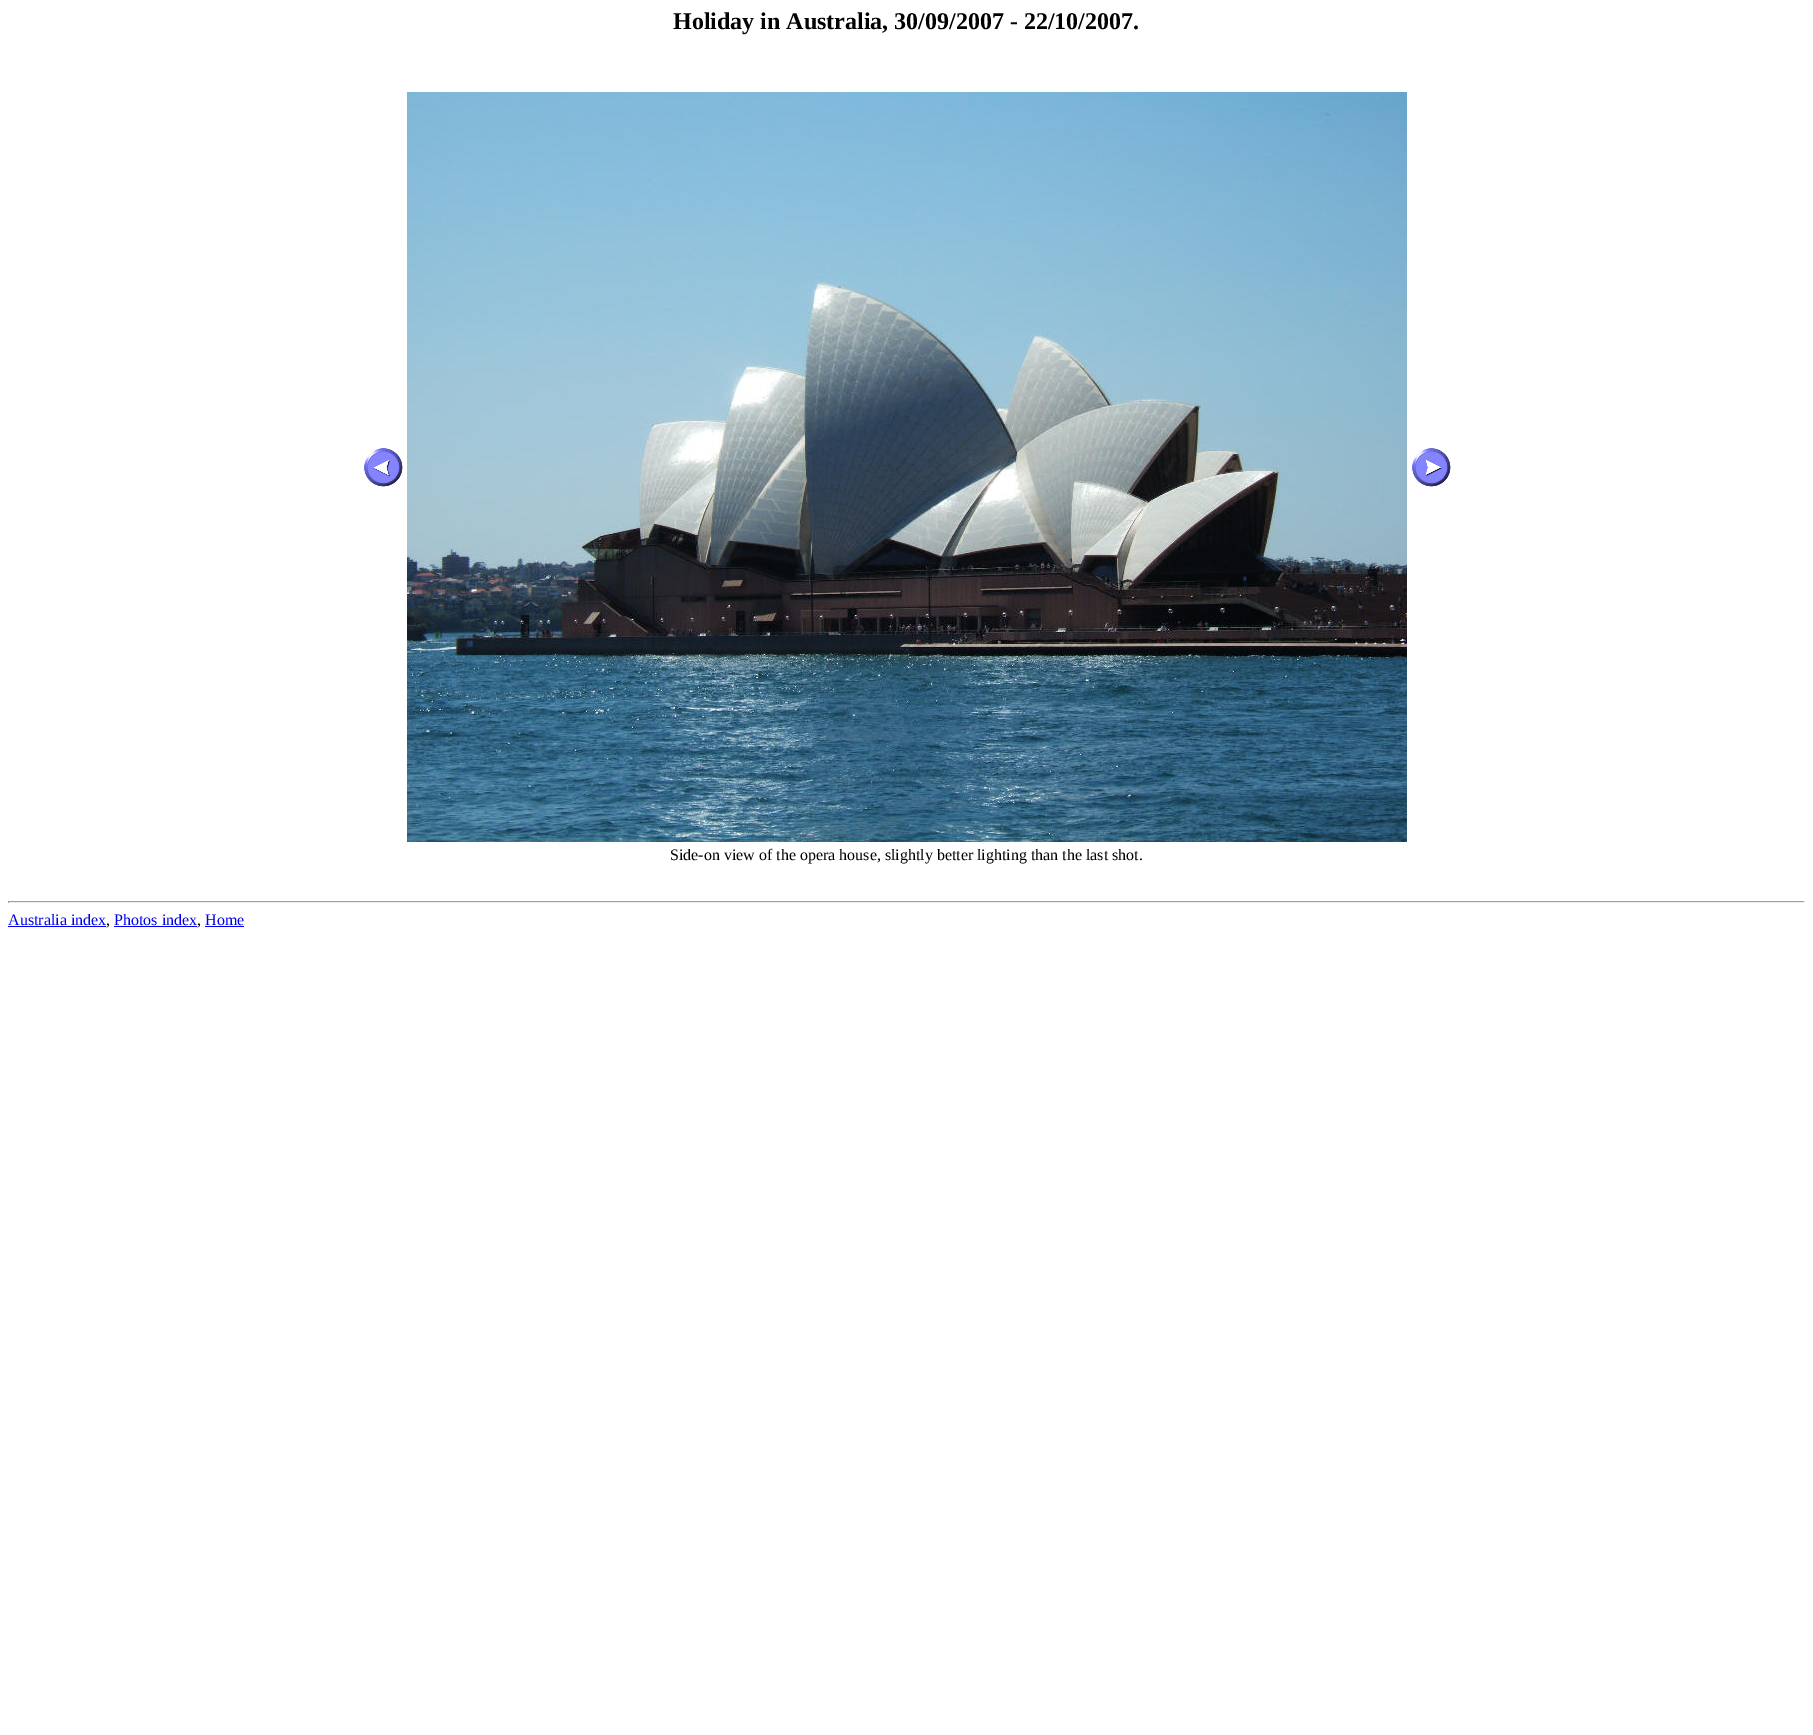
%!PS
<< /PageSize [1813 1735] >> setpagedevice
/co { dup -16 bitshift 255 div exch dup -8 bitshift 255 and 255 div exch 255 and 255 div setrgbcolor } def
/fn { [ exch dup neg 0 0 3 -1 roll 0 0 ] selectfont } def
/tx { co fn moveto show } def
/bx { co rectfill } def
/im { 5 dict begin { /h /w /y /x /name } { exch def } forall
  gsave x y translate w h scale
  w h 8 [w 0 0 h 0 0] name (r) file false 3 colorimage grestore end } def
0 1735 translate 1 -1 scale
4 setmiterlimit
0 0 1813 1735 16#FFFFFF bx
(media/1.raw) 364 448 39 39 im
(media/2.raw) 407 92 1000 750 im
(media/3.raw) 1412 448 39 39 im
8 901 1797 1 16#9F9F9F bx
1804 901 1 2 16#EEEEEE bx
8 902 1797 1 16#EEEEEE bx
8 901 1 2 16#9F9F9F bx
8 926 98 1 16#0000EE bx
114 926 83 1 16#0000EE bx
205 926 39 1 16#0000EE bx
(Holiday in Australia, 30/09/2007 - 22/10/2007.) 673 29 /LiberationSerif-Bold 24 16#000000 tx
(Side-on view of the opera house, slightly better lighting than the last shot.) 670 860 /LiberationSerif-Regular 16 16#000000 tx
(Australia index) 8 925 /LiberationSerif-Regular 16 16#0000EE tx
(,) 106 925 /LiberationSerif-Regular 16 16#000000 tx
(Photos index) 114 925 /LiberationSerif-Regular 16 16#0000EE tx
(,) 197 925 /LiberationSerif-Regular 16 16#000000 tx
(Home) 205 925 /LiberationSerif-Regular 16 16#0000EE tx
showpage
